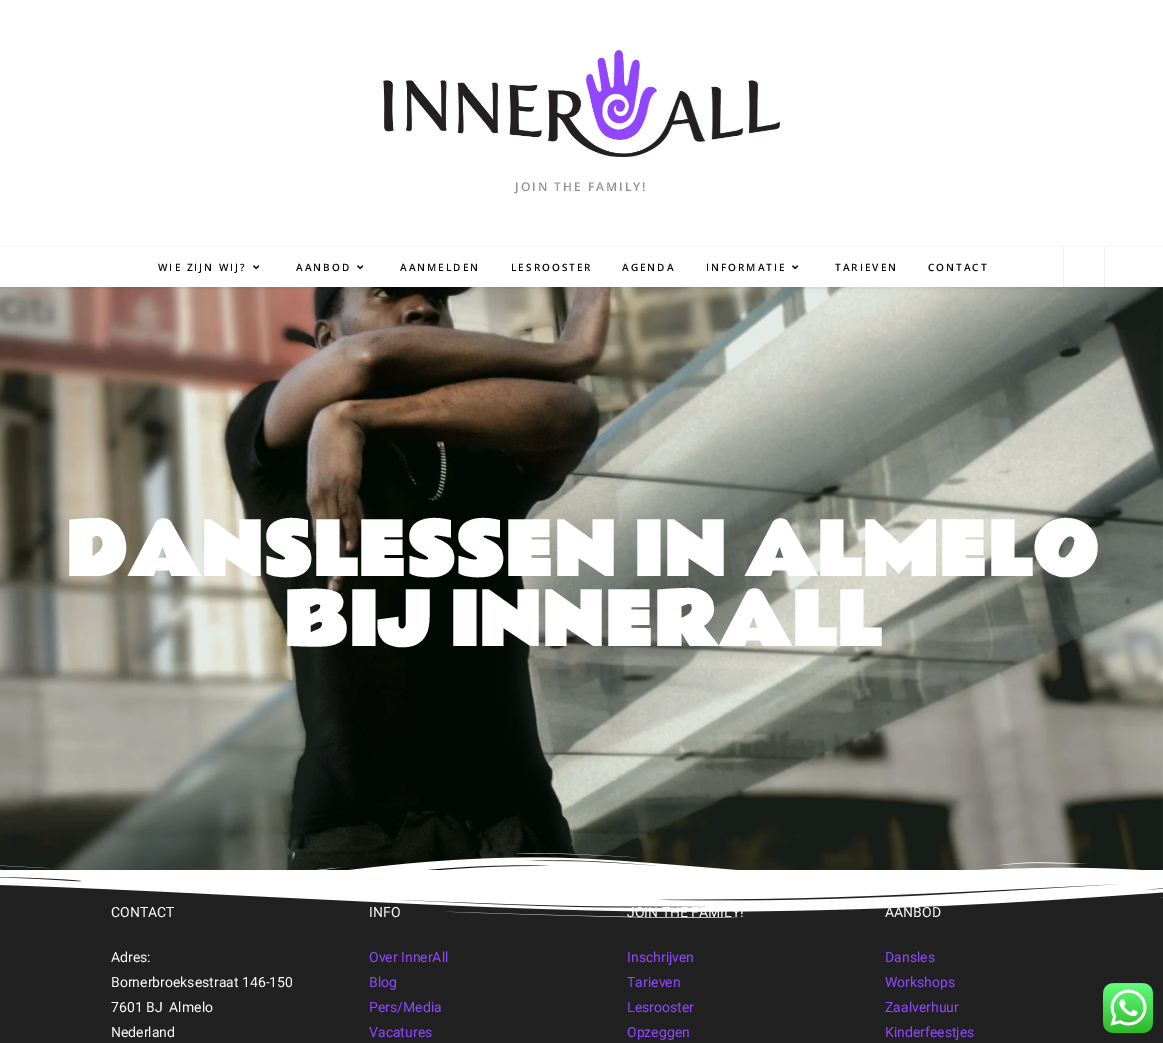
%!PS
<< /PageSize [1163 1043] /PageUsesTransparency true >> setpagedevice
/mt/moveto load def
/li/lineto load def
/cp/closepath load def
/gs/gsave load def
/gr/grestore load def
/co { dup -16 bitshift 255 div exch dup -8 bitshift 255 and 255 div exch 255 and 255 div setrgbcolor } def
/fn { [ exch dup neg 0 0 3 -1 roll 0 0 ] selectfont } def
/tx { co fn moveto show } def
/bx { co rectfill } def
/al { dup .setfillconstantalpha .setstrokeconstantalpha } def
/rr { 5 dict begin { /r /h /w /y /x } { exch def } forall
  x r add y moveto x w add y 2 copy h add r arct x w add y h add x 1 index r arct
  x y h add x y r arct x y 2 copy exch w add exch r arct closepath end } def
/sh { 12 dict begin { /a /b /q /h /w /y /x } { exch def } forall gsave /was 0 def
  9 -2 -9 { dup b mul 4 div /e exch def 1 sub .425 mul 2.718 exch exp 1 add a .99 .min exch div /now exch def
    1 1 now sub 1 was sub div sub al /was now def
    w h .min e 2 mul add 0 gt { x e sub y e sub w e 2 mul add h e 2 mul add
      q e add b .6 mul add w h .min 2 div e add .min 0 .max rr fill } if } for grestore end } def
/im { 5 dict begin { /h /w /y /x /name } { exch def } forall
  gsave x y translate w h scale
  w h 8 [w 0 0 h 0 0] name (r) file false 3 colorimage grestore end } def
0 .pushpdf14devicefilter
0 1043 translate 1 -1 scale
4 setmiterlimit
0 0 1163 1043 16#FFFFFF bx
(media/1.raw) 383 50 397 107 im
(media/3.raw) 0 287 1163 583 im
gs
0 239 mt 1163 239 li 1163 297 li 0 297 li cp 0 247 mt 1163 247 li 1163 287 li 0 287 li cp eoclip newpath
16#000000 co
0 248 1163 40 0 2.5 .1 sh
gr
(media/2.raw) 253 265 7 5 im
(media/2.raw) 357 265 7 5 im
(media/2.raw) 792 265 7 5 im
1104 247 1 40 16#F1F1F1 bx
1063 247 1 40 16#F1F1F1 bx
(media/4.raw) 0 853 1141 17 im
0 877 1163 166 16#212121 bx
(media/5.raw) 0 870 1163 48 im
(media/6.raw) 1103 983 50 50 im
/OpenSans-SemiBold 12 fn
16#929292 co
515 191 mt 2 0 (JOIN THE FAMILY!) ashow
/OpenSans-SemiBold 10 fn
16#0A0A0A co
158 271 mt 2 0 (WIE ZIJN WIJ?) ashow
296 271 mt 2 0 (AANBOD) ashow
400 271 mt 2 0 (AANMELDEN) ashow
511 271 mt 2 0 (LESROOSTER) ashow
622 271 mt 2 0 (AGENDA) ashow
706 271 mt 2 0 (INFORMATIE) ashow
835 271 mt 2 0 (TARIEVEN) ashow
928 271 mt 2 0 (CONTACT) ashow
(DANSLESSEN IN ALMELO) 65 576 /RammettoOne-Bold 70 16#FFFFFF tx
(BIJ INNERALL) 283 646 /RammettoOne-Bold 70 16#FFFFFF tx
(CONTACT) 111 917 /Roboto-Regular 14 16#FFFFFF tx
(Adres:) 111 962 /Roboto-Regular 14 16#FFFFFF tx
(Bornerbroeksestraat 146-150) 111 987 /Roboto-Regular 14 16#FFFFFF tx
(7601 BJ  Almelo) 111 1012 /Roboto-Regular 14 16#FFFFFF tx
(Nederland) 111 1037 /Roboto-Regular 14 16#FFFFFF tx
(INFO) 369 917 /Roboto-Regular 14 16#FFFFFF tx
(Over InnerAll) 369 962 /Roboto-Regular 14 16#9146FF tx
(Blog) 369 987 /Roboto-Regular 14 16#9146FF tx
(Pers/Media) 369 1012 /Roboto-Regular 14 16#9146FF tx
(Vacatures) 369 1037 /Roboto-Regular 14 16#9146FF tx
(JOIN THE FAMILY!) 627 917 /Roboto-Regular 14 16#FFFFFF tx
(Inschrijven) 627 962 /Roboto-Regular 14 16#9146FF tx
(Tarieven) 627 987 /Roboto-Regular 14 16#9146FF tx
(Lesrooster) 627 1012 /Roboto-Regular 14 16#9146FF tx
(Opzeggen) 627 1037 /Roboto-Regular 14 16#9146FF tx
(AANBOD) 885 917 /Roboto-Regular 14 16#FFFFFF tx
(Dansles) 885 962 /Roboto-Regular 14 16#9146FF tx
(Workshops) 885 987 /Roboto-Regular 14 16#9146FF tx
(Zaalverhuur) 885 1012 /Roboto-Regular 14 16#9146FF tx
(Kinderfeestjes) 885 1037 /Roboto-Regular 14 16#9146FF tx
.poppdf14devicefilter showpage
